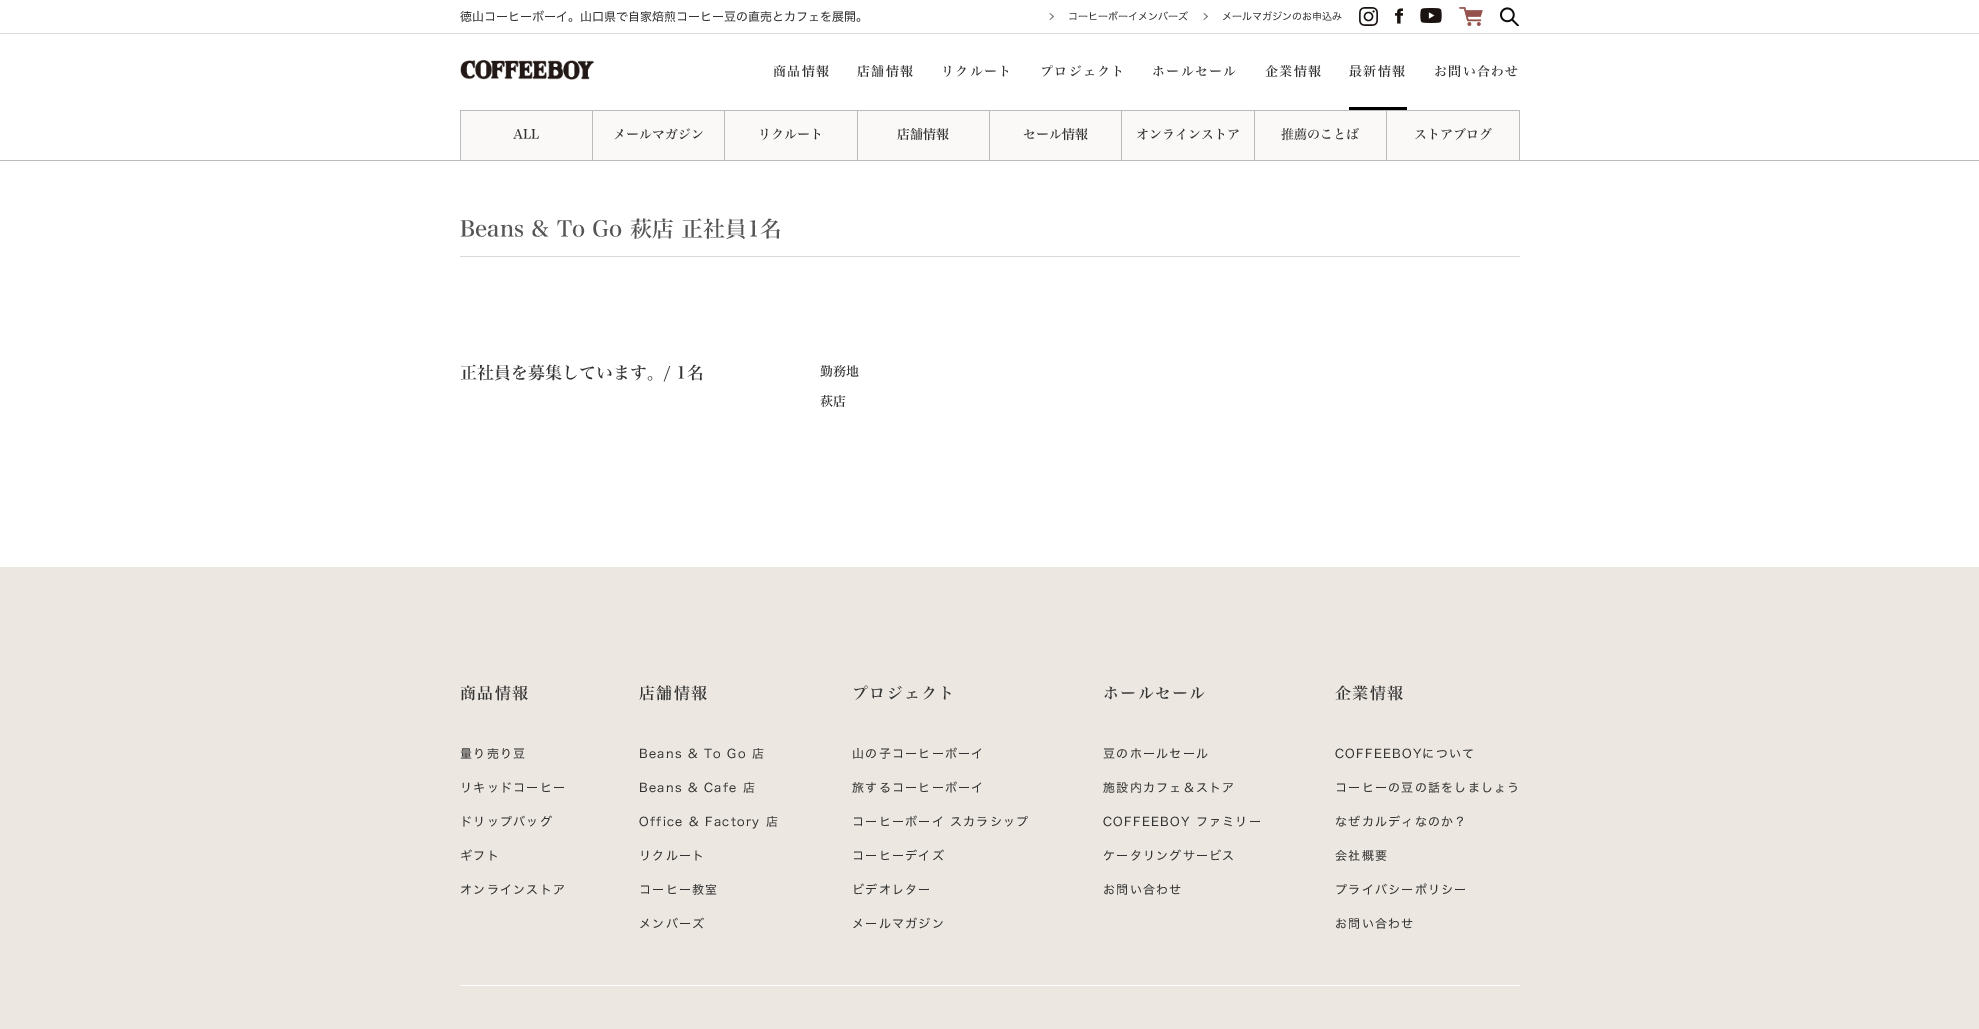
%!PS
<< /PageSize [1979 1029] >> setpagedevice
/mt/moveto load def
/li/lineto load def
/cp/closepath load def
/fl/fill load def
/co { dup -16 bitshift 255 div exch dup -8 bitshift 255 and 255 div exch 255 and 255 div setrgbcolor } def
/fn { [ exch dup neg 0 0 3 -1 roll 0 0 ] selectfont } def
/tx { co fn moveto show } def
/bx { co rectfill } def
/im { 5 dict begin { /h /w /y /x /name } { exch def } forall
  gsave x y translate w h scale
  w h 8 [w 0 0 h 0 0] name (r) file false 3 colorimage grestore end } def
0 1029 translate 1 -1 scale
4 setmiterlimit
0 0 1979 1029 16#FFFFFF bx
0 33 1979 1 16#D9D9D9 bx
16#797979 co
1050 13 mt 1054 16.5 li 1053 17 li 1049.5 13.5 li cp fl
1053 16 mt 1054 16.5 li 1050 20 li 1049.5 19.5 li cp fl
1204 13 mt 1208 16.5 li 1207 17 li 1203.5 13.5 li cp fl
1207 16 mt 1208 16.5 li 1204 20 li 1203.5 19.5 li cp fl
(media/1.raw) 1359 7 19 19 im
(media/2.raw) 1395 8 8 16 im
(media/3.raw) 1420 8 22 15 im
(media/4.raw) 1459 7 24 19 im
(media/5.raw) 1500 7 19 19 im
(media/6.raw) 460 60 134 20 im
1349 107 58 3 16#000000 bx
460 110 1060 1 16#BBBBBB bx
1519 111 1 50 16#BBBBBB bx
461 111 131 49 16#FBF9F8 bx
460 111 1 50 16#BBBBBB bx
461 160 131 1 16#BBBBBB bx
593 111 131 49 16#FBF9F8 bx
592 111 1 50 16#BBBBBB bx
593 160 131 1 16#BBBBBB bx
725 111 132 49 16#FBF9F8 bx
724 111 1 50 16#BBBBBB bx
725 160 132 1 16#BBBBBB bx
858 111 131 49 16#FBF9F8 bx
857 111 1 50 16#BBBBBB bx
858 160 131 1 16#BBBBBB bx
990 111 131 49 16#FBF9F8 bx
989 111 1 50 16#BBBBBB bx
990 160 131 1 16#BBBBBB bx
1122 111 132 49 16#FBF9F8 bx
1121 111 1 50 16#BBBBBB bx
1122 160 132 1 16#BBBBBB bx
1255 111 131 49 16#FBF9F8 bx
1254 111 1 50 16#BBBBBB bx
1255 160 131 1 16#BBBBBB bx
1387 111 132 49 16#FBF9F8 bx
1386 111 1 50 16#BBBBBB bx
1387 160 132 1 16#BBBBBB bx
0 160 460 1 16#BBBBBB bx
1520 160 459 1 16#BBBBBB bx
460 256 1060 1 16#D9D9D9 bx
0 567 1979 462 16#ECE8E1 bx
460 985 1060 1 16#FFFFFF bx
(徳山コーヒーボーイ。山口県で自家焙煎コーヒー豆の直売とカフェを展開。) 460 21 /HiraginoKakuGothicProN-Regular 12 16#333333 tx
(コーヒーボーイメンバーズ) 1068 20 /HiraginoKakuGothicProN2-Regular 10 16#333333 tx
(メールマガジンのお申込み) 1222 20 /HiraginoKakuGothicProN2-Regular 10 16#333333 tx
/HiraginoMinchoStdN-Medium 13 fn
773 76 mt 1.25 0 (商品情報) ashow
857 76 mt 1.25 0 (店舗情報) ashow
941 76 mt 1.25 0 (リクルート) ashow
1040 76 mt 1.25 0 (プロジェクト) ashow
1152 76 mt 1.25 0 (ホールセール) ashow
1265 76 mt 1.25 0 (企業情報) ashow
1349 76 mt 1.25 0 (最新情報) ashow
1434 76 mt 1.25 0 (お問い合わせ) ashow
(ALL) 513 139 /HiraginoMinchoStdN-Medium 13 16#333333 tx
(メールマガジン) 613 139 /HiraginoMinchoStdN-Medium 13 16#333333 tx
(リクルート) 758 139 /HiraginoMinchoStdN-Medium 13 16#333333 tx
(店舗情報) 897 139 /HiraginoMinchoStdN-Medium 13 16#333333 tx
(セール情報) 1023 139 /HiraginoMinchoStdN-Medium 13 16#333333 tx
(オンラインストア) 1136 139 /HiraginoMinchoStdN-Medium 13 16#333333 tx
(推薦のことば) 1281 139 /HiraginoMinchoStdN-Medium 13 16#333333 tx
(ストアブログ) 1414 139 /HiraginoMinchoStdN-Medium 13 16#333333 tx
(Beans & To Go 萩店 正社員1名) 460 237 /HiraginoMinchoStdN-Medium 22 16#555555 tx
(正社員を募集しています。/ 1名) 460 379 /HiraginoMinchoStdN-Medium 17 16#333333 tx
(勤務地) 820 376 /HiraginoMinchoStdN-Medium 13 16#333333 tx
(萩店) 820 406 /HiraginoMinchoStdN-Medium 13 16#333333 tx
/HiraginoMinchoStdN-Medium 16 fn
460 699 mt 1.25 0 (商品情報) ashow
/HiraginoKakuGothicProN-Regular 12 fn
460 758 mt 1.25 0 (量り売り豆) ashow
460 792 mt 1.25 0 (リキッドコーヒー) ashow
460 826 mt 1.25 0 (ドリップバッグ) ashow
460 860 mt 1.25 0 (ギフト) ashow
460 894 mt 1.25 0 (オンラインストア) ashow
/HiraginoMinchoStdN-Medium 16 fn
639 699 mt 1.25 0 (店舗情報) ashow
/HiraginoKakuGothicProN-Regular 12 fn
639 758 mt 1.25 0 (Beans & To Go 店) ashow
639 792 mt 1.25 0 (Beans & Cafe 店) ashow
639 826 mt 1.25 0 (Office & Factory 店) ashow
639 860 mt 1.25 0 (リクルート) ashow
639 894 mt 1.25 0 (コーヒー教室) ashow
639 928 mt 1.25 0 (メンバーズ) ashow
/HiraginoMinchoStdN-Medium 16 fn
852 699 mt 1.25 0 (プロジェクト) ashow
/HiraginoKakuGothicProN-Regular 12 fn
852 758 mt 1.25 0 (山の子コーヒーボーイ) ashow
852 792 mt 1.25 0 (旅するコーヒーボーイ) ashow
852 826 mt 1.25 0 (コーヒーボーイ スカラシップ) ashow
852 860 mt 1.25 0 (コーヒーデイズ) ashow
852 894 mt 1.25 0 (ビデオレター) ashow
852 928 mt 1.25 0 (メールマガジン) ashow
/HiraginoMinchoStdN-Medium 16 fn
1103 699 mt 1.25 0 (ホールセール) ashow
/HiraginoKakuGothicProN-Regular 12 fn
1103 758 mt 1.25 0 (豆のホールセール) ashow
1103 792 mt 1.25 0 (施設内カフェ＆ストア) ashow
1103 826 mt 1.25 0 (COFFEEBOY ファミリー) ashow
1103 860 mt 1.25 0 (ケータリングサービス) ashow
1103 894 mt 1.25 0 (お問い合わせ) ashow
/HiraginoMinchoStdN-Medium 16 fn
1335 699 mt 1.25 0 (企業情報) ashow
/HiraginoKakuGothicProN-Regular 12 fn
1335 758 mt 1.25 0 (COFFEEBOYについて) ashow
1335 792 mt 1.25 0 (コーヒーの豆の話をしましょう) ashow
1335 826 mt 1.25 0 (なぜカルディなのか？) ashow
1335 860 mt 1.25 0 (会社概要) ashow
1335 894 mt 1.25 0 (プライバシーポリシー) ashow
1335 928 mt 1.25 0 (お問い合わせ) ashow
showpage
